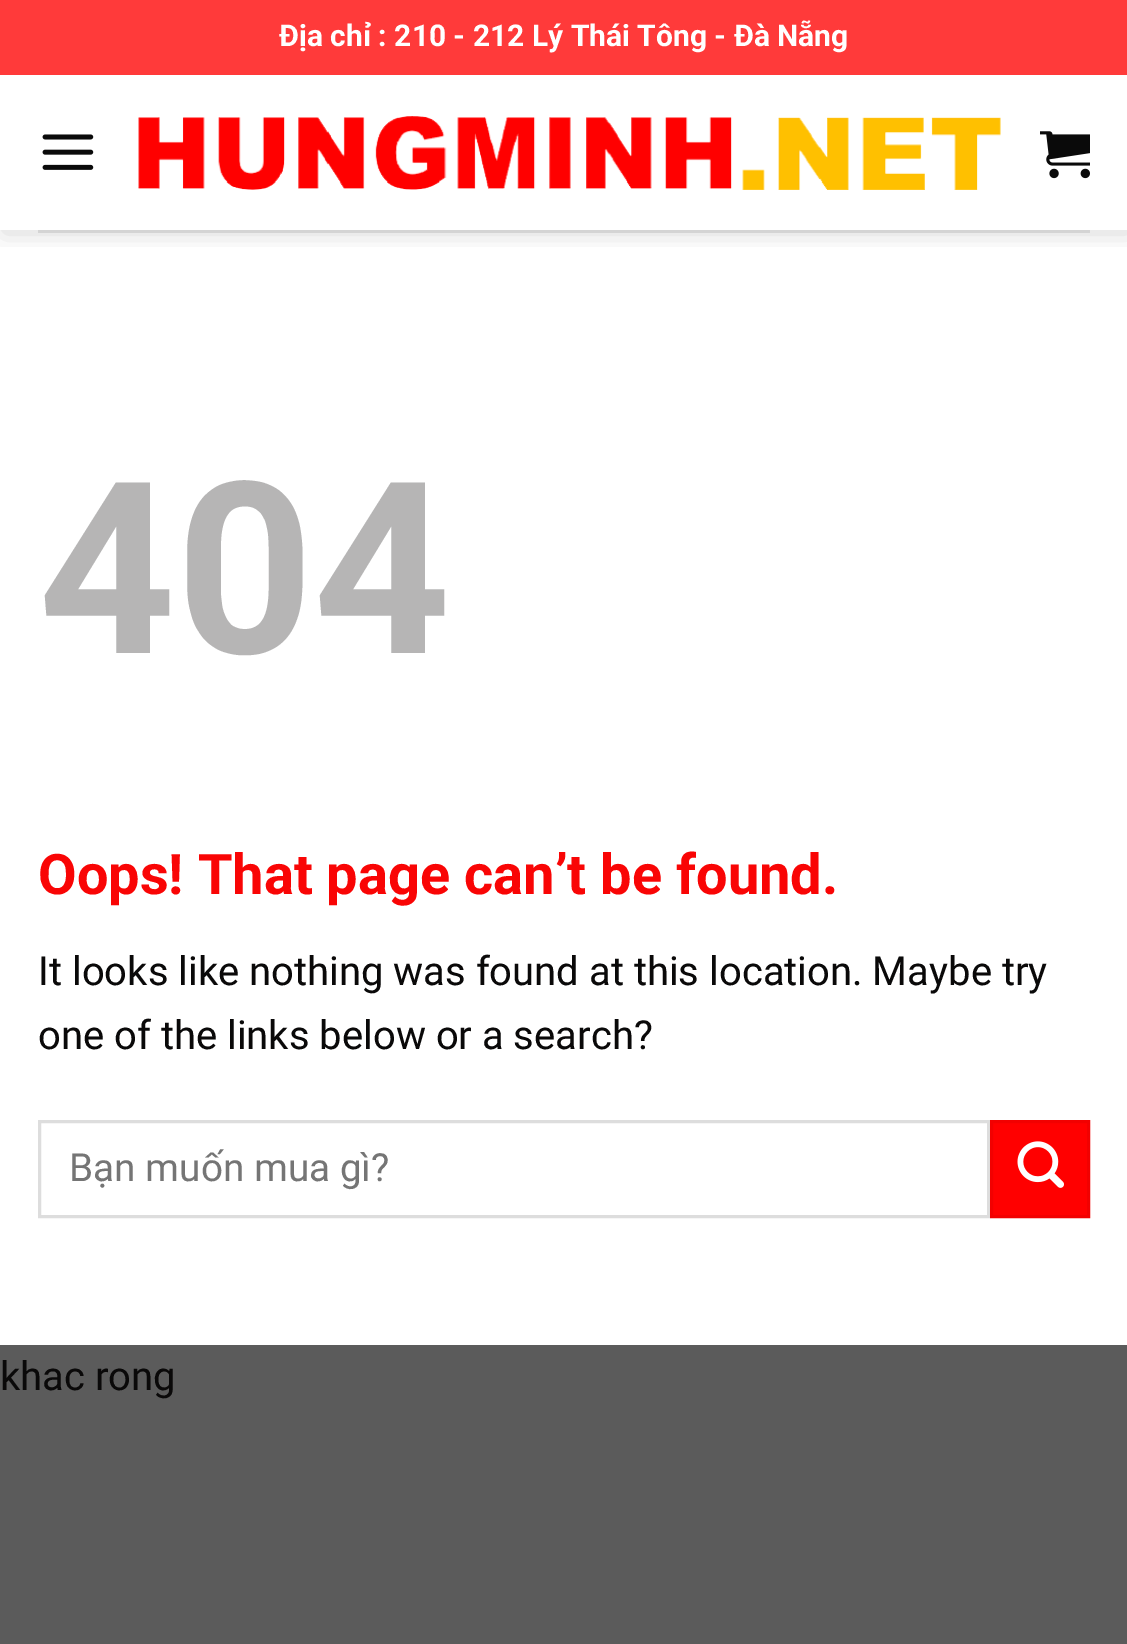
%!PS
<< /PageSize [1127 1644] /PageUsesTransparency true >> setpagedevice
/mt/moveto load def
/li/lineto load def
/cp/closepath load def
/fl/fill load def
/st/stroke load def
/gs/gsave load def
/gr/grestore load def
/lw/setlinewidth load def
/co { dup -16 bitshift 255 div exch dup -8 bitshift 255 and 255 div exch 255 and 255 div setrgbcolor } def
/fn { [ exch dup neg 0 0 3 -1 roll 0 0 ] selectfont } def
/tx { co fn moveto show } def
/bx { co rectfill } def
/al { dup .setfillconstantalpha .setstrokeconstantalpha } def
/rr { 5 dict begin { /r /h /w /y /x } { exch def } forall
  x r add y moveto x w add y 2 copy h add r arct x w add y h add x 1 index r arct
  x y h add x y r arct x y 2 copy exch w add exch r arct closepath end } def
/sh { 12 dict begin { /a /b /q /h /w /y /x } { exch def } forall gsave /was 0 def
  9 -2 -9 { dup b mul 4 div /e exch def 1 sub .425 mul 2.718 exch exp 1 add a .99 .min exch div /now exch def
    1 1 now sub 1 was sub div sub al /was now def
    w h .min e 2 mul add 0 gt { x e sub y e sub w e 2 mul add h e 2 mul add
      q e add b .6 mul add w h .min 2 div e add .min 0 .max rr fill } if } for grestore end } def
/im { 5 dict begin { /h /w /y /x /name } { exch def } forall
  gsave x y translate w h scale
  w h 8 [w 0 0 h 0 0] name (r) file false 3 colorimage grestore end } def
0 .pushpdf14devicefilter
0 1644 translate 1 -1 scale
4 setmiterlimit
0 0 1127 1644 16#5B5B5B bx
0 75 1127 1270 16#FFFFFF bx
gs
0 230 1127 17 rectclip
16#000000 co
3 3 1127 230 0 12.5 .15 sh
gr
0 0 1127 75 16#FF3A3A bx
(media/1.raw) 42 134 52 36 im
(media/2.raw) 138 116 863 74 im
(media/3.raw) 1040 131 50 48 im
38 230 1052 3 16#D4D4D4 bx
16#DDDDDD co
3 lw
39.5 1121.5 949 95 rectstroke
16#FF0000 co
991.5 1121.5 mt 1088.5 1121.5 li 1088.5 1216.5 li 991.5 1216.5 li cp gs fl gr
16#F20000 co
st
(media/4.raw) 1017 1141 47 47 im
(Địa chỉ : 210 - 212 Lý Thái Tông - Đà Nẵng) 279 46 /Roboto-Bold 30 16#FFFFFF tx
(404) 38 653 /Roboto-Bold 240 16#B6B5B5 tx
(Oops! That page can’t be found.) 38 894 /Roboto-Bold 56 16#F90505 tx
(It looks like nothing was found at this location. Maybe try) 38 985 /Roboto-Regular 40 16#0A0909 tx
(one of the links below or a search?) 38 1049 /Roboto-Regular 40 16#0A0909 tx
(Bạn muốn mua gì?) 69 1181 /Roboto-Regular 38.75 16#757575 tx
(khac rong) 0 1390 /Roboto-Regular 40 16#0A0909 tx
.poppdf14devicefilter showpage
